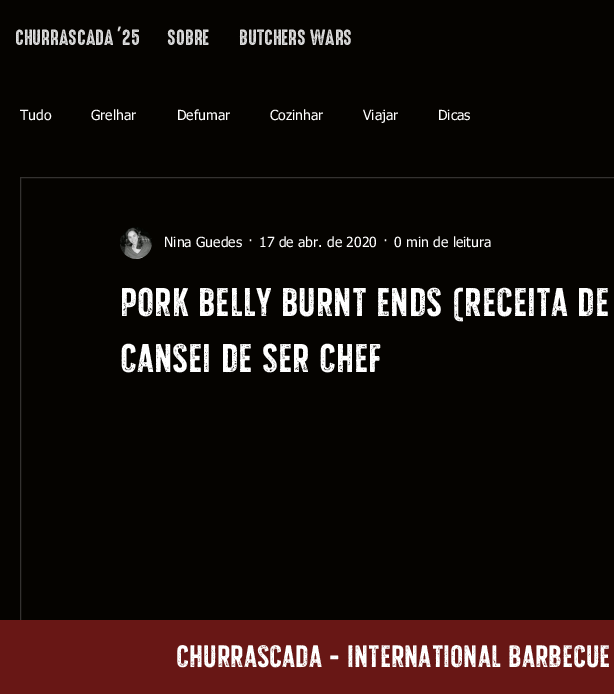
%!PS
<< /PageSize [614 694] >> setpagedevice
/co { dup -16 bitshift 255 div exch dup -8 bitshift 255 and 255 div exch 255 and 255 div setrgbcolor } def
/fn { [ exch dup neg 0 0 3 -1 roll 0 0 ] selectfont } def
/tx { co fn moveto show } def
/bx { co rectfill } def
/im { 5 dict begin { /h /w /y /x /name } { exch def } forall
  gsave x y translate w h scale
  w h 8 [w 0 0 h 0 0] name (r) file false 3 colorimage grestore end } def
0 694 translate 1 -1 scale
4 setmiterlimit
0 0 614 694 16#050300 bx
16#343230 co
20.5 177.5 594 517 rectstroke
(media/1.raw) 120 227 32 32 im
0 620 614 74 16#681715 bx
(CHURRASCADA '25) 15 45 /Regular-Regular 20 16#DBDBDB tx
(SOBRE) 167 45 /Regular-Regular 20 16#DBDBDB tx
(BUTCHERS WARS) 239 45 /Regular-Regular 20 16#DBDBDB tx
(Tudo) 20 120 /tahoma-Regular 14 16#FFFFFF tx
(Grelhar) 91 120 /tahoma-Regular 14 16#FFFFFF tx
(Defumar) 177 120 /tahoma-Regular 14 16#FFFFFF tx
(Cozinhar) 270 120 /tahoma-Regular 14 16#FFFFFF tx
(Viajar) 363 120 /tahoma-Regular 14 16#FFFFFF tx
(Dicas) 438 120 /tahoma-Regular 14 16#FFFFFF tx
(Nina Guedes) 164 247 /tahoma-Regular 14 16#FFFFFF tx
(·) 248 247 /tahoma-Regular 14 16#FFFFFF tx
(17 de abr. de 2020) 259 247 /tahoma-Regular 14 16#FFFFFF tx
(·) 383 247 /tahoma-Regular 14 16#FFFFFF tx
(0 min de leitura) 394 247 /tahoma-Regular 14 16#FFFFFF tx
(Pork Belly Burnt Ends \(Receita de) 120 316 /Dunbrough-Regular 40 16#FFFFFF tx
(Cansei de Ser Chef) 120 372 /Dunbrough-Regular 40 16#FFFFFF tx
(Churrascada - International Barbecue) 176 667 /Dunbrough-Regular 31 16#FFFFFF tx
showpage
